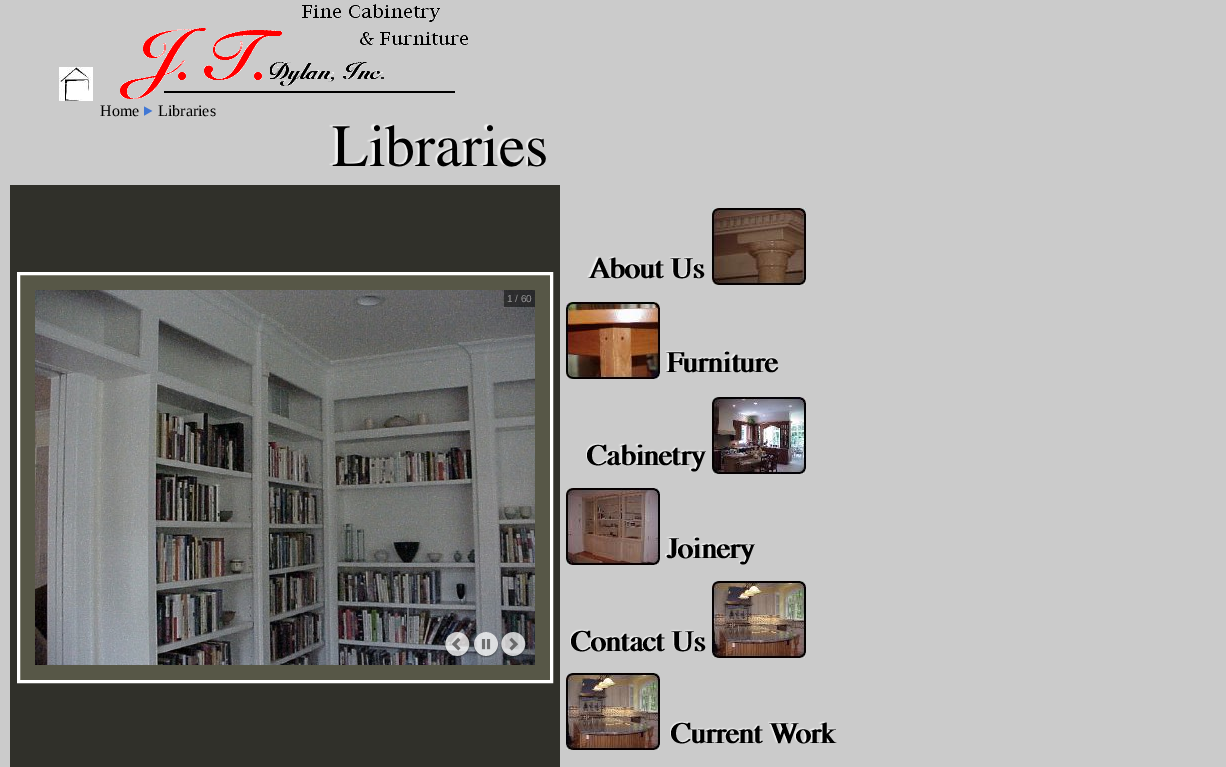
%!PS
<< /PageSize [1226 767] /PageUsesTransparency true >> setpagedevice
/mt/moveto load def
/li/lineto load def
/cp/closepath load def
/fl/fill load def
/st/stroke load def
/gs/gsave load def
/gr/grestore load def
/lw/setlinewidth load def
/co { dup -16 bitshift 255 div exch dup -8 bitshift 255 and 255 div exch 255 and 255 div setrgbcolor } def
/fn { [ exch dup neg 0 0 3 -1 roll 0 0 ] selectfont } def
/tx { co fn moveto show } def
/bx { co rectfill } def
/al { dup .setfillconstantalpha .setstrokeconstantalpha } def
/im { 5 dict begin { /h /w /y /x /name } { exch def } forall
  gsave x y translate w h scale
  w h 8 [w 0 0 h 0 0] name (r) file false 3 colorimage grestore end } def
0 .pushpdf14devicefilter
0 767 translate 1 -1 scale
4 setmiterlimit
0 0 1226 767 16#CBCBCB bx
(media/1.raw) 59 67 34 34 im
(media/2.raw) 120 4 348 95 im
(media/3.raw) 144 106 9 10 im
(media/4.raw) 329 123 217 44 im
(media/5.raw) 587 256 118 23 im
(media/6.raw) 712 208 94 77 im
10 185 550 582 16#30302A bx
16#575747 co
18.5 273.5 mt 551.5 273.5 li 551.5 681.5 li 18.5 681.5 li cp gs fl gr
16#FFFFFF co
3 lw
st
(media/7.raw) 35 290 500 375 im
0.5 al
504 290 31 17 16#000000 bx
1 al
(media/8.raw) 444 632 26 26 im
(media/9.raw) 473 632 26 26 im
(media/10.raw) 500 632 26 26 im
(media/11.raw) 566 302 94 77 im
(media/12.raw) 665 350 114 23 im
(media/13.raw) 586 443 120 29 im
(media/14.raw) 712 397 94 77 im
(media/15.raw) 566 488 94 77 im
(media/16.raw) 665 536 90 29 im
(media/17.raw) 570 629 136 23 im
(media/18.raw) 712 581 94 77 im
(media/18.raw) 566 673 94 77 im
(media/19.raw) 670 721 167 23 im
(Home) 100 116 /LiberationSerif-Regular 16 16#000000 tx
(Libraries) 158 116 /LiberationSerif-Regular 16 16#000000 tx
(1 / 60) 507 302 /LiberationSans-Regular 10 16#959596 tx
.poppdf14devicefilter showpage
